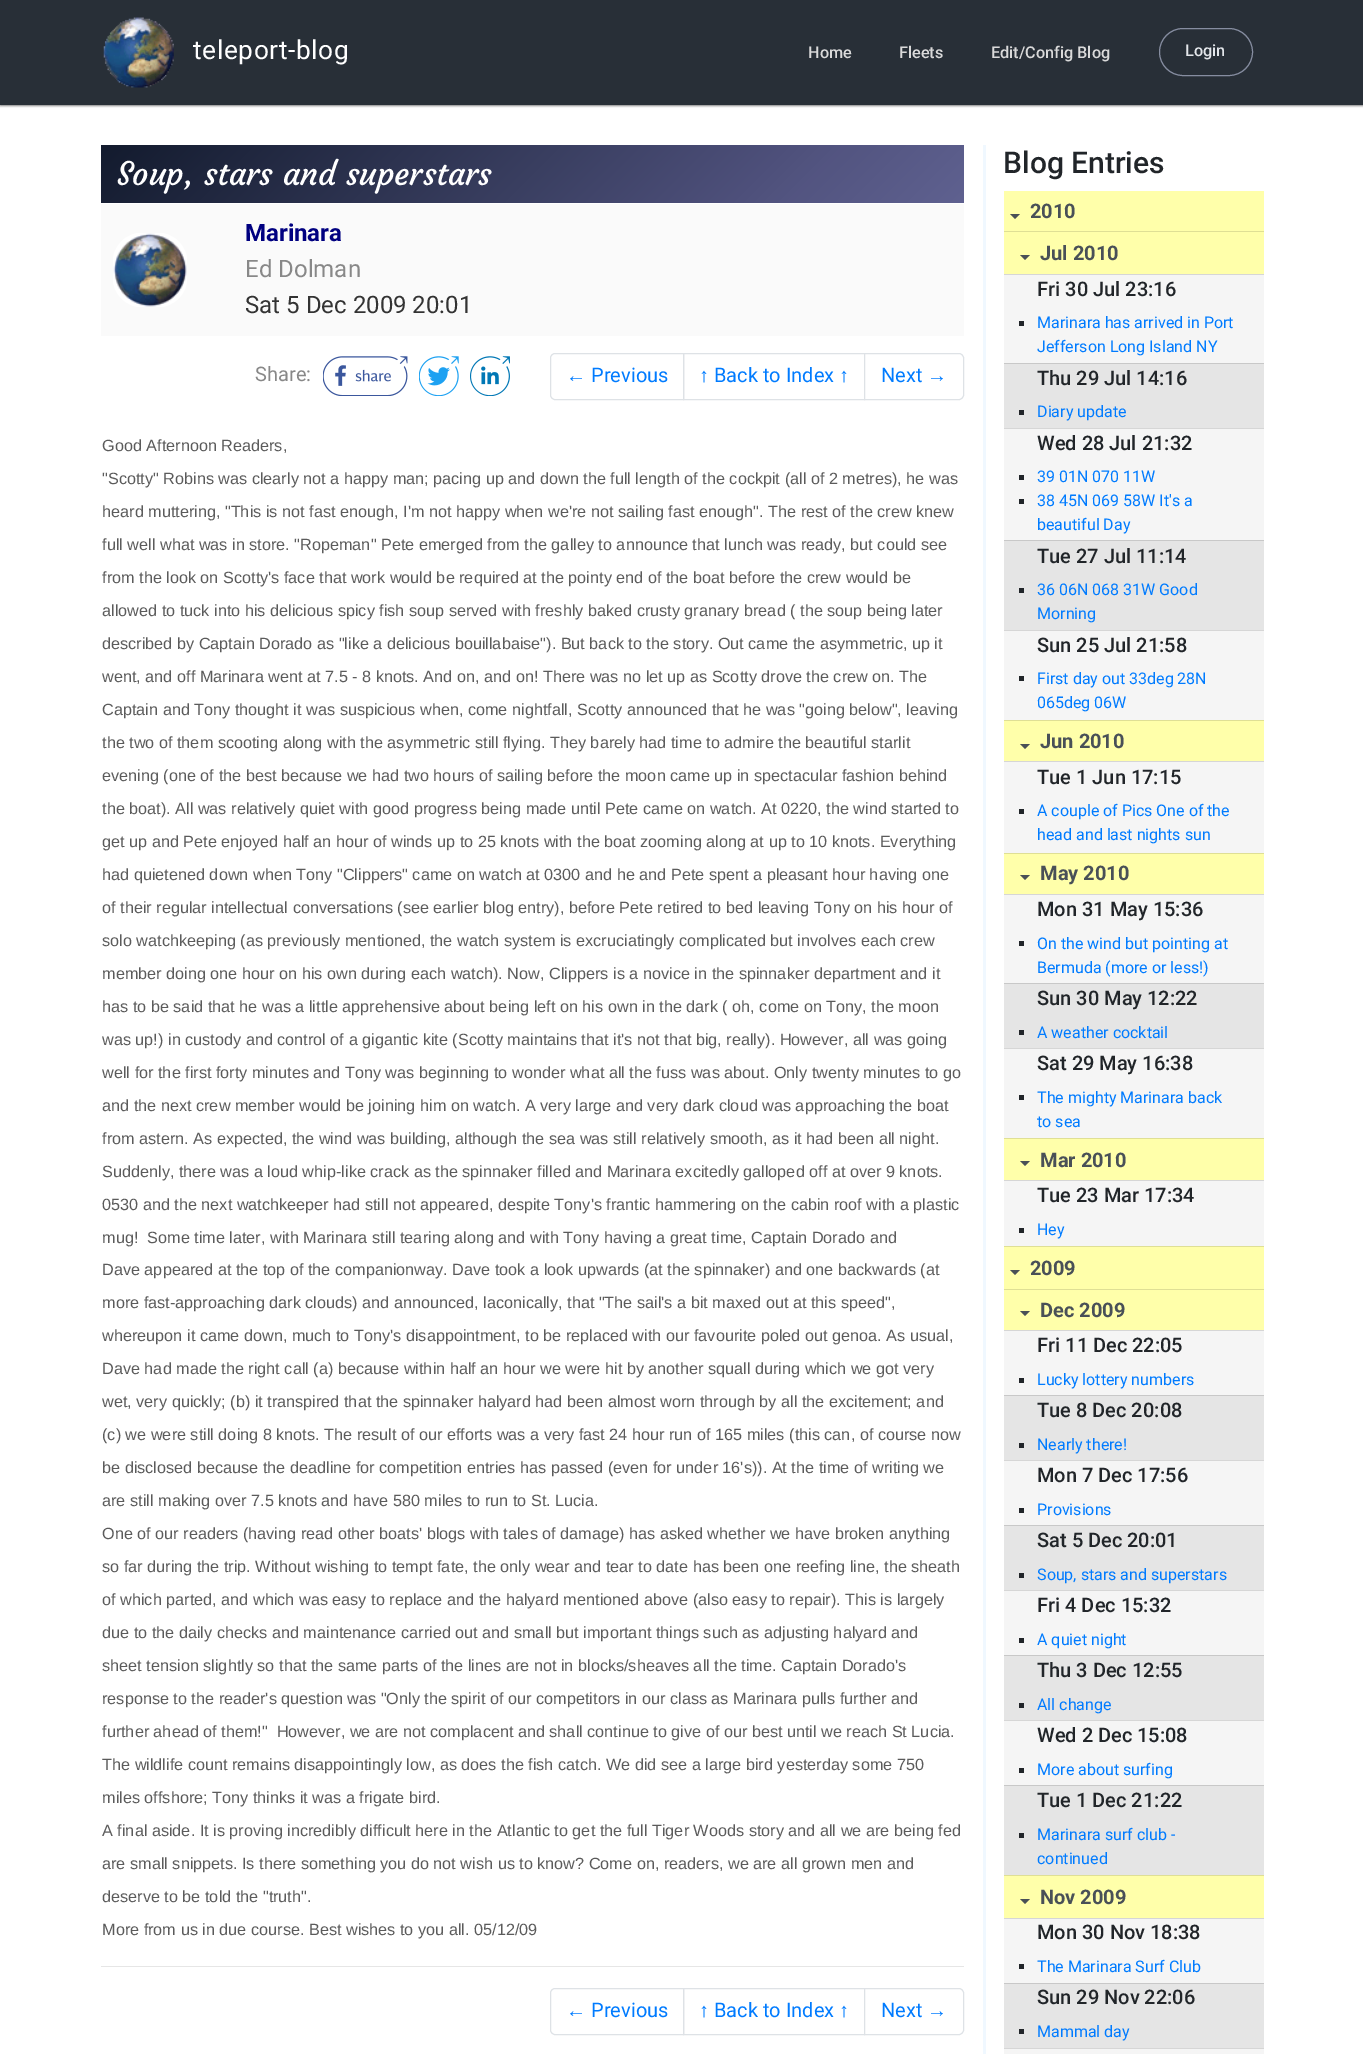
%!PS
<< /PageSize [1363 2054] /PageUsesTransparency true >> setpagedevice
/mt/moveto load def
/li/lineto load def
/ct/curveto load def
/cp/closepath load def
/fl/fill load def
/st/stroke load def
/gs/gsave load def
/gr/grestore load def
/co { dup -16 bitshift 255 div exch dup -8 bitshift 255 and 255 div exch 255 and 255 div setrgbcolor } def
/fn { [ exch dup neg 0 0 3 -1 roll 0 0 ] selectfont } def
/tx { co fn moveto show } def
/bx { co rectfill } def
/al { dup .setfillconstantalpha .setstrokeconstantalpha } def
/rr { 5 dict begin { /r /h /w /y /x } { exch def } forall
  x r add y moveto x w add y 2 copy h add r arct x w add y h add x 1 index r arct
  x y h add x y r arct x y 2 copy exch w add exch r arct closepath end } def
/sh { 12 dict begin { /a /b /q /h /w /y /x } { exch def } forall gsave /was 0 def
  9 -2 -9 { dup b mul 4 div /e exch def 1 sub .425 mul 2.718 exch exp 1 add a .99 .min exch div /now exch def
    1 1 now sub 1 was sub div sub al /was now def
    w h .min e 2 mul add 0 gt { x e sub y e sub w e 2 mul add h e 2 mul add
      q e add b .6 mul add w h .min 2 div e add .min 0 .max rr fill } if } for grestore end } def
/im { 5 dict begin { /h /w /y /x /name } { exch def } forall
  gsave x y translate w h scale
  w h 8 [w 0 0 h 0 0] name (r) file false 3 colorimage grestore end } def
0 .pushpdf14devicefilter
0 2054 translate 1 -1 scale
4 setmiterlimit
0 0 1363 2054 16#FFFFFF bx
16#000000 co
0 1 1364 105 0 1 .5 sh
0 0 1363 105 16#282F37 bx
(media/1.raw) 103 17 71 71 im
16#868DA0 co
1159.5 28.5 93 47 23.5 rr st
gs 101 145 mt 964 145 li 964 203 li 101 203 li cp clip newpath
<< /ShadingType 2 /ColorSpace /DeviceRGB /Coords [763 404 303 -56] /Extend [true true] /Function << /FunctionType 3 /Domain [0 1] /Functions [<< /FunctionType 2 /Domain [0 1] /C0 [.373 .38 .565] /C1 [.322 .329 .502] /N 1 >> << /FunctionType 2 /Domain [0 1] /C0 [.322 .329 .502] /C1 [.075 .106 .18] /N 1 >>] /Bounds [.2] /Encode [0 1 0 1] >> >> shfill gr
101 204 863 132 16#FAFAFA bx
(media/2.raw) 113 233 74 74 im
(media/3.raw) 323 356 85 40 im
(media/4.raw) 419 356 40 40 im
(media/5.raw) 470 356 40 40 im
16#DEE2E6 co
555 353.5 mt 683.5 353.5 li 683.5 399.5 li 555 399.5 li 552.5 399.5 550.5 397.5 550.5 395 ct 550.5 358 li 550.5 355.5 552.5 353.5 555 353.5 ct cp st
683.5 353.5 181 46 rectstroke
16#FFFFFF co
864.5 353.5 mt 959 353.5 li 961.5 353.5 963.5 355.5 963.5 358 ct 963.5 395 li 963.5 397.5 961.5 399.5 959 399.5 ct 864.5 399.5 li cp gs fl gr
16#DEE2E6 co
st
101 1966 863 1 16#E6E6E6 bx
16#DEE2E6 co
555 1988.5 mt 683.5 1988.5 li 683.5 2034.5 li 555 2034.5 li 552.5 2034.5 550.5 2032.5 550.5 2030 ct 550.5 1993 li 550.5 1990.5 552.5 1988.5 555 1988.5 ct cp st
683.5 1988.5 181 46 rectstroke
16#FFFFFF co
864.5 1988.5 mt 959 1988.5 li 961.5 1988.5 963.5 1990.5 963.5 1993 ct 963.5 2030 li 963.5 2032.5 961.5 2034.5 959 2034.5 ct 864.5 2034.5 li cp gs fl gr
16#DEE2E6 co
st
983 145 3 1909 16#F0F8FF bx
1004 191 260 40 16#FFFFAA bx
16#495057 co
1010 214 mt 1020 214 li 1015 219 li cp fl
1004 232 260 42 16#FFFFAA bx
1004 231 260 1 16#DFDF95 bx
16#495057 co
1020 255 mt 1030 255 li 1025 260 li cp fl
1004 275 260 88 16#F5F5F5 bx
1004 274 260 1 16#D6D6D6 bx
1019 321 5 5 16#212529 bx
1004 364 260 64 16#E5E5E5 bx
1004 363 260 1 16#C8C8C8 bx
1019 410 5 5 16#212529 bx
1004 429 260 111 16#F5F5F5 bx
1004 428 260 1 16#D6D6D6 bx
1019 475 5 5 16#212529 bx
1019 499 5 5 16#212529 bx
1004 541 260 89 16#E5E5E5 bx
1004 540 260 1 16#C8C8C8 bx
1019 588 5 5 16#212529 bx
1004 631 260 89 16#F5F5F5 bx
1004 630 260 1 16#D6D6D6 bx
1019 676 5 5 16#212529 bx
1004 721 260 40 16#FFFFAA bx
1004 720 260 1 16#DFDF95 bx
16#495057 co
1020 744 mt 1030 744 li 1025 749 li cp fl
1004 762 260 91 16#F5F5F5 bx
1004 761 260 1 16#D6D6D6 bx
1019 809 5 5 16#212529 bx
1004 854 260 40 16#FFFFAA bx
1004 853 260 1 16#DFDF95 bx
16#495057 co
1020 875 mt 1030 875 li 1025 880 li cp fl
1004 895 260 88 16#F5F5F5 bx
1004 894 260 1 16#D6D6D6 bx
1019 941 5 5 16#212529 bx
1004 984 260 64 16#E5E5E5 bx
1004 983 260 1 16#C8C8C8 bx
1019 1030 5 5 16#212529 bx
1004 1049 260 89 16#F5F5F5 bx
1004 1048 260 1 16#D6D6D6 bx
1019 1095 5 5 16#212529 bx
1004 1139 260 41 16#FFFFAA bx
1004 1138 260 1 16#DFDF95 bx
16#495057 co
1020 1161 mt 1030 1161 li 1025 1166 li cp fl
1004 1181 260 65 16#F5F5F5 bx
1004 1180 260 1 16#D6D6D6 bx
1019 1228 5 5 16#212529 bx
1004 1247 260 42 16#FFFFAA bx
1004 1246 260 1 16#DFDF95 bx
16#495057 co
1010 1270 mt 1020 1270 li 1015 1275 li cp fl
1004 1290 260 40 16#FFFFAA bx
1004 1289 260 1 16#DFDF95 bx
16#495057 co
1020 1311 mt 1030 1311 li 1025 1316 li cp fl
1004 1331 260 64 16#F5F5F5 bx
1004 1330 260 1 16#D6D6D6 bx
1019 1378 5 5 16#212529 bx
1004 1396 260 64 16#E5E5E5 bx
1004 1395 260 1 16#C8C8C8 bx
1019 1443 5 5 16#212529 bx
1004 1461 260 64 16#F5F5F5 bx
1004 1460 260 1 16#D6D6D6 bx
1019 1508 5 5 16#212529 bx
1004 1526 260 64 16#E5E5E5 bx
1004 1525 260 1 16#C8C8C8 bx
1019 1573 5 5 16#212529 bx
1004 1591 260 64 16#F5F5F5 bx
1004 1590 260 1 16#D6D6D6 bx
1019 1638 5 5 16#212529 bx
1004 1656 260 64 16#E5E5E5 bx
1004 1655 260 1 16#C8C8C8 bx
1019 1703 5 5 16#212529 bx
1004 1721 260 64 16#F5F5F5 bx
1004 1720 260 1 16#D6D6D6 bx
1019 1768 5 5 16#212529 bx
1004 1786 260 89 16#E5E5E5 bx
1004 1785 260 1 16#C8C8C8 bx
1019 1833 5 5 16#212529 bx
1004 1876 260 42 16#FFFFAA bx
1004 1875 260 1 16#DFDF95 bx
16#495057 co
1020 1899 mt 1030 1899 li 1025 1904 li cp fl
1004 1919 260 64 16#F5F5F5 bx
1004 1918 260 1 16#D6D6D6 bx
1019 1964 5 5 16#212529 bx
1004 1984 260 64 16#E5E5E5 bx
1004 1983 260 1 16#C8C8C8 bx
1019 2029 5 5 16#212529 bx
1004 2049 260 5 16#F5F5F5 bx
1004 2048 260 1 16#D6D6D6 bx
/Roboto-Regular 26.25 fn
16#FFFFFF co
193 59 mt .6 0 (teleport-blog) ashow
(Home) 808 58 /Roboto-Medium 16.25 16#DADADA tx
(Fleets) 899 58 /Roboto-Medium 16.25 16#DADADA tx
(Edit/Config Blog) 991 58 /Roboto-Medium 16.25 16#DADADA tx
(Login) 1185 56 /Roboto-Medium 16.25 16#E3E6EA tx
(Soup, stars and superstars) 117 185 /Courgette-Regular 32 16#FFFFFF tx
(Marinara) 245 241 /Roboto-Bold 24 16#000080 tx
(Ed Dolman) 245 277 /Roboto-Regular 24 16#888888 tx
(Sat 5 Dec 2009 20:01) 245 313 /Roboto-Regular 24 16#333333 tx
(Share:) 255 381 /Roboto-Regular 20 16#888888 tx
(←) 566 382 /LiberationSans-Regular 20 16#007BFF tx
(Previous) 591 382 /Roboto-Regular 20 16#007BFF tx
(↑) 699 382 /LiberationSans-Regular 20 16#007BFF tx
(Back to Index) 714 382 /Roboto-Regular 20 16#007BFF tx
(↑) 839 382 /LiberationSans-Regular 20 16#007BFF tx
(Next) 881 382 /Roboto-Regular 20 16#007BFF tx
(→) 927 382 /LiberationSans-Regular 20 16#007BFF tx
(Good Afternoon Readers,) 102 451 /LiberationSans-Regular 16.25 16#5B5B5B tx
("Scotty" Robins was clearly not a happy man; pacing up and down the full length of the cockpit \(all of 2 metres\), he was) 102 484 /LiberationSans-Regular 16.25 16#5B5B5B tx
(heard muttering, "This is not fast enough, I'm not happy when we're not sailing fast enough". The rest of the crew knew) 102 517 /LiberationSans-Regular 16.25 16#5B5B5B tx
(full well what was in store. "Ropeman" Pete emerged from the galley to announce that lunch was ready, but could see) 102 550 /LiberationSans-Regular 16.25 16#5B5B5B tx
(from the look on Scotty's face that work would be required at the pointy end of the boat before the crew would be) 102 583 /LiberationSans-Regular 16.25 16#5B5B5B tx
(allowed to tuck into his delicious spicy fish soup served with freshly baked crusty granary bread \( the soup being later) 102 616 /LiberationSans-Regular 16.25 16#5B5B5B tx
(described by Captain Dorado as "like a delicious bouillabaise"\). But back to the story. Out came the asymmetric, up it) 102 649 /LiberationSans-Regular 16.25 16#5B5B5B tx
(went, and off Marinara went at 7.5 - 8 knots. And on, and on! There was no let up as Scotty drove the crew on. The) 102 682 /LiberationSans-Regular 16.25 16#5B5B5B tx
(Captain and Tony thought it was suspicious when, come nightfall, Scotty announced that he was "going below", leaving) 102 715 /LiberationSans-Regular 16.25 16#5B5B5B tx
(the two of them scooting along with the asymmetric still flying. They barely had time to admire the beautiful starlit) 102 748 /LiberationSans-Regular 16.25 16#5B5B5B tx
(evening \(one of the best because we had two hours of sailing before the moon came up in spectacular fashion behind) 102 781 /LiberationSans-Regular 16.25 16#5B5B5B tx
(the boat\). All was relatively quiet with good progress being made until Pete came on watch. At 0220, the wind started to) 102 814 /LiberationSans-Regular 16.25 16#5B5B5B tx
(get up and Pete enjoyed half an hour of winds up to 25 knots with the boat zooming along at up to 10 knots. Everything) 102 847 /LiberationSans-Regular 16.25 16#5B5B5B tx
(had quietened down when Tony "Clippers" came on watch at 0300 and he and Pete spent a pleasant hour having one) 102 880 /LiberationSans-Regular 16.25 16#5B5B5B tx
(of their regular intellectual conversations \(see earlier blog entry\), before Pete retired to bed leaving Tony on his hour of) 102 913 /LiberationSans-Regular 16.25 16#5B5B5B tx
(solo watchkeeping \(as previously mentioned, the watch system is excruciatingly complicated but involves each crew) 102 946 /LiberationSans-Regular 16.25 16#5B5B5B tx
(member doing one hour on his own during each watch\). Now, Clippers is a novice in the spinnaker department and it) 102 979 /LiberationSans-Regular 16.25 16#5B5B5B tx
(has to be said that he was a little apprehensive about being left on his own in the dark \( oh, come on Tony, the moon) 102 1012 /LiberationSans-Regular 16.25 16#5B5B5B tx
(was up!\) in custody and control of a gigantic kite \(Scotty maintains that it's not that big, really\). However, all was going) 102 1045 /LiberationSans-Regular 16.25 16#5B5B5B tx
(well for the first forty minutes and Tony was beginning to wonder what all the fuss was about. Only twenty minutes to go) 102 1078 /LiberationSans-Regular 16.25 16#5B5B5B tx
(and the next crew member would be joining him on watch. A very large and very dark cloud was approaching the boat) 102 1111 /LiberationSans-Regular 16.25 16#5B5B5B tx
(from astern. As expected, the wind was building, although the sea was still relatively smooth, as it had been all night.) 102 1144 /LiberationSans-Regular 16.25 16#5B5B5B tx
(Suddenly, there was a loud whip-like crack as the spinnaker filled and Marinara excitedly galloped off at over 9 knots.) 102 1177 /LiberationSans-Regular 16.25 16#5B5B5B tx
(0530 and the next watchkeeper had still not appeared, despite Tony's frantic hammering on the cabin roof with a plastic) 102 1210 /LiberationSans-Regular 16.25 16#5B5B5B tx
(mug!  Some time later, with Marinara still tearing along and with Tony having a great time, Captain Dorado and) 102 1243 /LiberationSans-Regular 16.25 16#5B5B5B tx
(Dave appeared at the top of the companionway. Dave took a look upwards \(at the spinnaker\) and one backwards \(at) 102 1275 /LiberationSans-Regular 16.25 16#5B5B5B tx
(more fast-approaching dark clouds\) and announced, laconically, that "The sail's a bit maxed out at this speed",) 102 1308 /LiberationSans-Regular 16.25 16#5B5B5B tx
(whereupon it came down, much to Tony's disappointment, to be replaced with our favourite poled out genoa. As usual,) 102 1341 /LiberationSans-Regular 16.25 16#5B5B5B tx
(Dave had made the right call \(a\) because within half an hour we were hit by another squall during which we got very) 102 1374 /LiberationSans-Regular 16.25 16#5B5B5B tx
(wet, very quickly; \(b\) it transpired that the spinnaker halyard had been almost worn through by all the excitement; and) 102 1407 /LiberationSans-Regular 16.25 16#5B5B5B tx
(\(c\) we were still doing 8 knots. The result of our efforts was a very fast 24 hour run of 165 miles \(this can, of course now) 102 1440 /LiberationSans-Regular 16.25 16#5B5B5B tx
(be disclosed because the deadline for competition entries has passed \(even for under 16's\)\). At the time of writing we) 102 1473 /LiberationSans-Regular 16.25 16#5B5B5B tx
(are still making over 7.5 knots and have 580 miles to run to St. Lucia.) 102 1506 /LiberationSans-Regular 16.25 16#5B5B5B tx
(One of our readers \(having read other boats' blogs with tales of damage\) has asked whether we have broken anything) 102 1539 /LiberationSans-Regular 16.25 16#5B5B5B tx
(so far during the trip. Without wishing to tempt fate, the only wear and tear to date has been one reefing line, the sheath) 102 1572 /LiberationSans-Regular 16.25 16#5B5B5B tx
(of which parted, and which was easy to replace and the halyard mentioned above \(also easy to repair\). This is largely) 102 1605 /LiberationSans-Regular 16.25 16#5B5B5B tx
(due to the daily checks and maintenance carried out and small but important things such as adjusting halyard and) 102 1638 /LiberationSans-Regular 16.25 16#5B5B5B tx
(sheet tension slightly so that the same parts of the lines are not in blocks/sheaves all the time. Captain Dorado's) 102 1671 /LiberationSans-Regular 16.25 16#5B5B5B tx
(response to the reader's question was "Only the spirit of our competitors in our class as Marinara pulls further and) 102 1704 /LiberationSans-Regular 16.25 16#5B5B5B tx
(further ahead of them!"  However, we are not complacent and shall continue to give of our best until we reach St Lucia.) 102 1737 /LiberationSans-Regular 16.25 16#5B5B5B tx
(The wildlife count remains disappointingly low, as does the fish catch. We did see a large bird yesterday some 750) 102 1770 /LiberationSans-Regular 16.25 16#5B5B5B tx
(miles offshore; Tony thinks it was a frigate bird.) 102 1803 /LiberationSans-Regular 16.25 16#5B5B5B tx
(A final aside. It is proving incredibly difficult here in the Atlantic to get the full Tiger Woods story and all we are being fed) 102 1836 /LiberationSans-Regular 16.25 16#5B5B5B tx
(are small snippets. Is there something you do not wish us to know? Come on, readers, we are all grown men and) 102 1869 /LiberationSans-Regular 16.25 16#5B5B5B tx
(deserve to be told the "truth".) 102 1902 /LiberationSans-Regular 16.25 16#5B5B5B tx
(More from us in due course. Best wishes to you all. 05/12/09) 102 1935 /LiberationSans-Regular 16.25 16#5B5B5B tx
(←) 566 2017 /LiberationSans-Regular 20 16#007BFF tx
(Previous) 591 2017 /Roboto-Regular 20 16#007BFF tx
(↑) 699 2017 /LiberationSans-Regular 20 16#007BFF tx
(Back to Index) 714 2017 /Roboto-Regular 20 16#007BFF tx
(↑) 839 2017 /LiberationSans-Regular 20 16#007BFF tx
(Next) 881 2017 /Roboto-Regular 20 16#007BFF tx
(→) 927 2017 /LiberationSans-Regular 20 16#007BFF tx
(Blog Entries) 1003 173 /Roboto-Medium 30 16#212529 tx
(2010) 1030 218 /Roboto-Bold 20 16#495057 tx
(Jul 2010) 1040 260 /Roboto-Bold 20 16#495057 tx
(Fri 30 Jul 23:16) 1037 296 /Roboto-Medium 20 16#212529 tx
(Marinara has arrived in Port) 1037 328 /Roboto-Regular 16 16#007BFF tx
(Jefferson Long Island NY) 1037 352 /Roboto-Regular 16 16#007BFF tx
(Thu 29 Jul 14:16) 1037 385 /Roboto-Medium 20 16#212529 tx
(Diary update) 1037 417 /Roboto-Regular 16 16#007BFF tx
(Wed 28 Jul 21:32) 1037 450 /Roboto-Medium 20 16#212529 tx
(39 01N 070 11W) 1037 482 /Roboto-Regular 16 16#007BFF tx
(38 45N 069 58W It's a) 1037 506 /Roboto-Regular 16 16#007BFF tx
(beautiful Day) 1037 530 /Roboto-Regular 16 16#007BFF tx
(Tue 27 Jul 11:14) 1037 563 /Roboto-Medium 20 16#212529 tx
(36 06N 068 31W Good) 1037 595 /Roboto-Regular 16 16#007BFF tx
(Morning) 1037 619 /Roboto-Regular 16 16#007BFF tx
(Sun 25 Jul 21:58) 1037 652 /Roboto-Medium 20 16#212529 tx
(First day out 33deg 28N) 1037 684 /Roboto-Regular 16 16#007BFF tx
(065deg 06W) 1037 708 /Roboto-Regular 16 16#007BFF tx
(Jun 2010) 1040 748 /Roboto-Bold 20 16#495057 tx
(Tue 1 Jun 17:15) 1037 784 /Roboto-Medium 20 16#212529 tx
(A couple of Pics One of the) 1037 816 /Roboto-Regular 16 16#007BFF tx
(head and last nights sun) 1037 840 /Roboto-Regular 16 16#007BFF tx
(May 2010) 1040 880 /Roboto-Bold 20 16#495057 tx
(Mon 31 May 15:36) 1037 916 /Roboto-Medium 20 16#212529 tx
(On the wind but pointing at) 1037 949 /Roboto-Regular 16 16#007BFF tx
(Bermuda \(more or less!\)) 1037 973 /Roboto-Regular 16 16#007BFF tx
(Sun 30 May 12:22) 1037 1005 /Roboto-Medium 20 16#212529 tx
(A weather cocktail) 1037 1038 /Roboto-Regular 16 16#007BFF tx
(Sat 29 May 16:38) 1037 1070 /Roboto-Medium 20 16#212529 tx
(The mighty Marinara back) 1037 1103 /Roboto-Regular 16 16#007BFF tx
(to sea) 1037 1127 /Roboto-Regular 16 16#007BFF tx
(Mar 2010) 1040 1167 /Roboto-Bold 20 16#495057 tx
(Tue 23 Mar 17:34) 1037 1202 /Roboto-Medium 20 16#212529 tx
(Hey) 1037 1235 /Roboto-Regular 16 16#007BFF tx
(2009) 1030 1275 /Roboto-Bold 20 16#495057 tx
(Dec 2009) 1040 1317 /Roboto-Bold 20 16#495057 tx
(Fri 11 Dec 22:05) 1037 1352 /Roboto-Medium 20 16#212529 tx
(Lucky lottery numbers) 1037 1385 /Roboto-Regular 16 16#007BFF tx
(Tue 8 Dec 20:08) 1037 1417 /Roboto-Medium 20 16#212529 tx
(Nearly there!) 1037 1450 /Roboto-Regular 16 16#007BFF tx
(Mon 7 Dec 17:56) 1037 1482 /Roboto-Medium 20 16#212529 tx
(Provisions) 1037 1515 /Roboto-Regular 16 16#007BFF tx
(Sat 5 Dec 20:01) 1037 1547 /Roboto-Medium 20 16#212529 tx
(Soup, stars and superstars) 1037 1580 /Roboto-Regular 16 16#007BFF tx
(Fri 4 Dec 15:32) 1037 1612 /Roboto-Medium 20 16#212529 tx
(A quiet night) 1037 1645 /Roboto-Regular 16 16#007BFF tx
(Thu 3 Dec 12:55) 1037 1677 /Roboto-Medium 20 16#212529 tx
(All change) 1037 1710 /Roboto-Regular 16 16#007BFF tx
(Wed 2 Dec 15:08) 1037 1742 /Roboto-Medium 20 16#212529 tx
(More about surfing) 1037 1775 /Roboto-Regular 16 16#007BFF tx
(Tue 1 Dec 21:22) 1037 1807 /Roboto-Medium 20 16#212529 tx
(Marinara surf club -) 1037 1840 /Roboto-Regular 16 16#007BFF tx
(continued) 1037 1864 /Roboto-Regular 16 16#007BFF tx
(Nov 2009) 1040 1904 /Roboto-Bold 20 16#495057 tx
(Mon 30 Nov 18:38) 1037 1939 /Roboto-Medium 20 16#212529 tx
(The Marinara Surf Club) 1037 1972 /Roboto-Regular 16 16#007BFF tx
(Sun 29 Nov 22:06) 1037 2004 /Roboto-Medium 20 16#212529 tx
(Mammal day) 1037 2037 /Roboto-Regular 16 16#007BFF tx
.poppdf14devicefilter showpage
